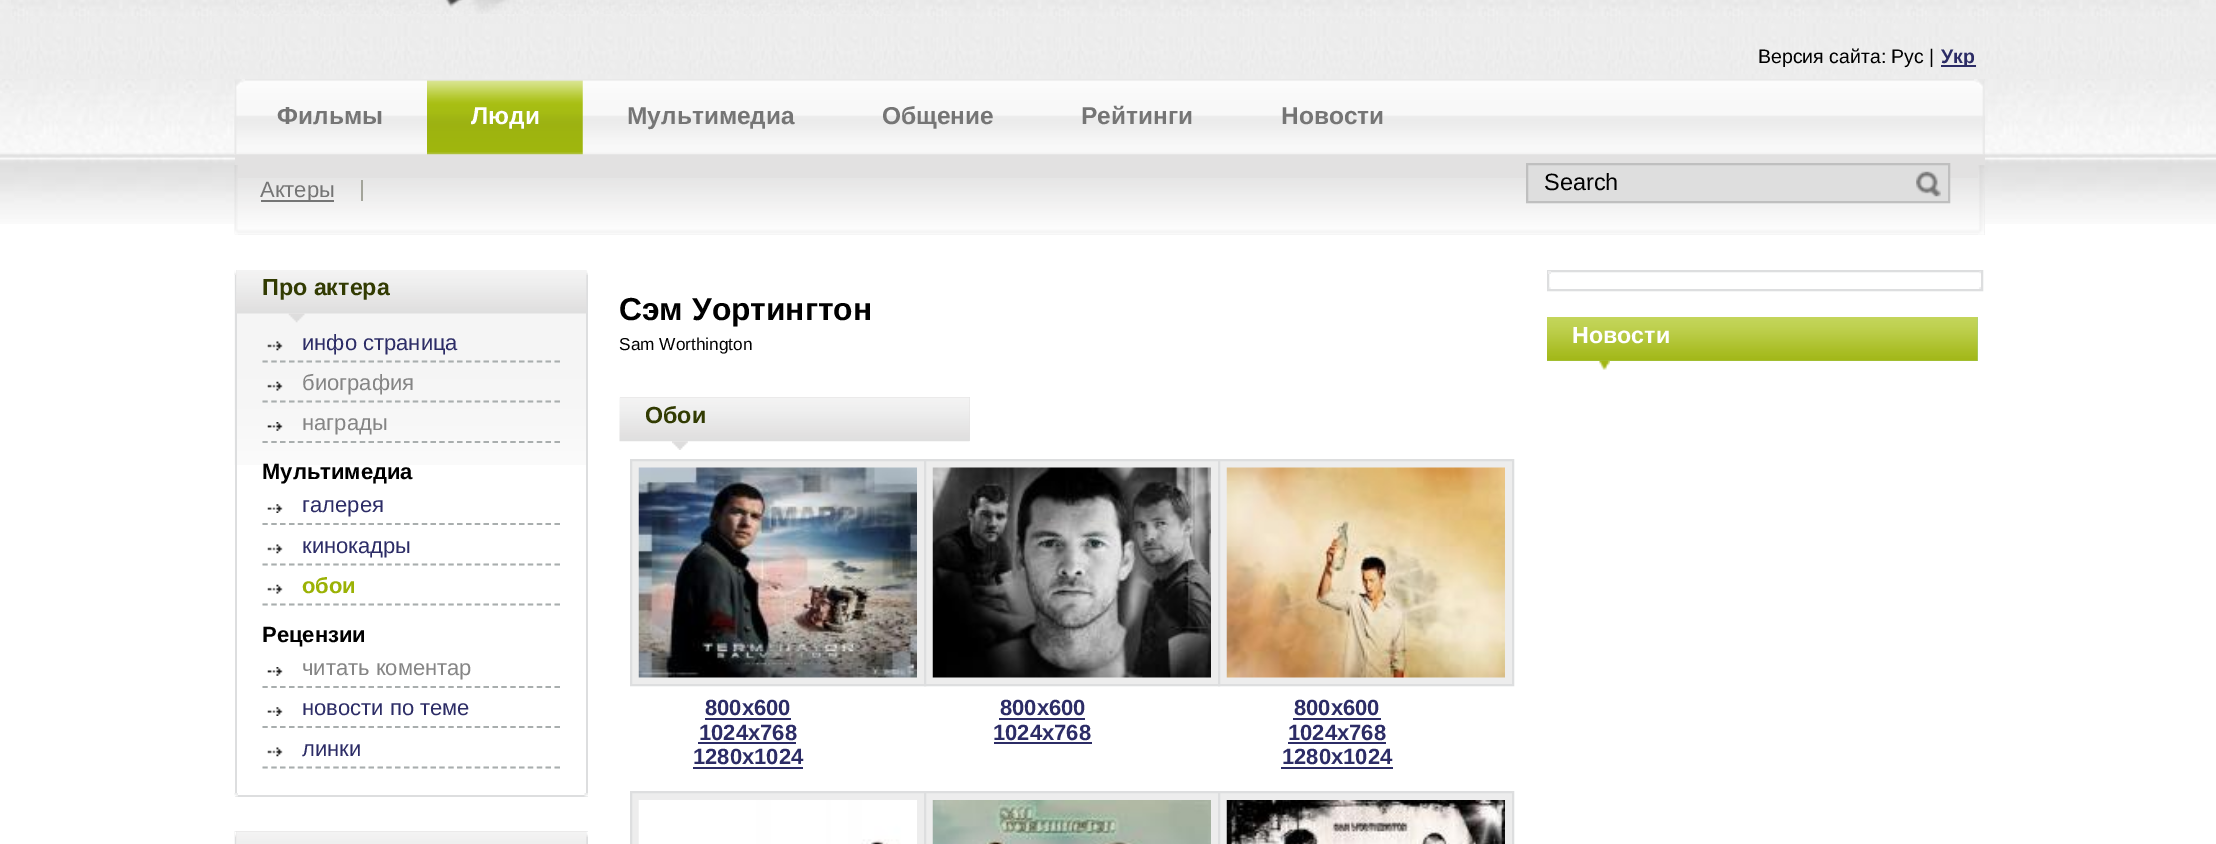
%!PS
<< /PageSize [2216 844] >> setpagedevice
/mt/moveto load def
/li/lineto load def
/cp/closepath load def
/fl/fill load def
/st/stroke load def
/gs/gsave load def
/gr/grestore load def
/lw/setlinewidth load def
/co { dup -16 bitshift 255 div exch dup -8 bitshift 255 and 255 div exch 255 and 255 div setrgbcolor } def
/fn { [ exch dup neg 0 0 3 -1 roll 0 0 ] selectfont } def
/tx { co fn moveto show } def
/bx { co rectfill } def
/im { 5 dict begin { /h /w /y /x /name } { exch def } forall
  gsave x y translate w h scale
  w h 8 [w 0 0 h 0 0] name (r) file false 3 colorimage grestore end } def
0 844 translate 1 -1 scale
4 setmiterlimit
0 0 2216 844 16#FFFFFF bx
(media/1.raw) 0 0 2216 79 im
(media/2.raw) 11 0 2188 16 im
(media/3.raw) 235 0 666 14 im
1941 65 35 2 16#2C2C66 bx
(media/4.raw) 0 79 2216 145 im
235 79 1750 156 16#E2E1E1 bx
(media/5.raw) 234 79 1751 76 im
(media/6.raw) 234 79 11 75 im
(media/7.raw) 427 80 156 75 im
(media/8.raw) 1974 79 11 75 im
(media/9.raw) 234 178 1751 57 im
(media/10.raw) 234 165 4 70 im
361 180 2 21 16#A3A49A bx
261 200 73 2 16#757575 bx
16#DEDEDE co
1527 164 mt 1949 164 li 1949 202 li 1527 202 li cp gs fl gr
16#BFBFBF co
2 lw
st
(media/11.raw) 1916 171 25 26 im
(media/12.raw) 1978 165 7 70 im
(media/13.raw) 234 270 352 195 im
586 270 2 526 16#DDDEDF bx
235 795 353 2 16#DDDEDF bx
235 270 2 526 16#DDDEDF bx
(media/14.raw) 234 270 3 5 im
(media/15.raw) 586 270 2 5 im
(media/16.raw) 236 270 351 44 im
(media/17.raw) 288 313 17 10 im
16#A9AEAE co
1.8 lw
[5.25 3.6] 0 setdash
262.5 361.5 mt 560 361.5 li st
(media/18.raw) 267 341 16 10 im
262.5 401.5 mt 560 401.5 li st
(media/19.raw) 267 381 16 10 im
262.5 442 mt 560 442 li st
(media/20.raw) 267 422 16 9 im
262.5 524 mt 560 524 li st
(media/21.raw) 267 504 16 9 im
262.5 564.5 mt 560 564.5 li st
(media/22.raw) 267 544 16 10 im
262.5 604.5 mt 560 604.5 li st
(media/23.raw) 267 584 16 10 im
262.5 687 mt 560 687 li st
(media/24.raw) 267 667 16 9 im
262.5 727 mt 560 727 li st
(media/21.raw) 267 707 16 9 im
262.5 767.5 mt 560 767.5 li st
(media/22.raw) 267 747 16 10 im
(media/25.raw) 234 793 4 4 im
(media/26.raw) 584 793 4 4 im
234 831 1 13 16#F6F6F6 bx
586 831 2 13 16#DDDEDF bx
235 831 1 13 16#DDDEDF bx
(media/27.raw) 235 831 1 6 im
236 831 350 13 16#E2E1E1 bx
(media/29.raw) 586 831 2 6 im
(media/28.raw) 236 831 351 13 im
620 397 350 44 16#E2E1E1 bx
(media/30.raw) 619 397 351 45 im
(media/31.raw) 672 441 16 9 im
16#EDEDED co
631 460 mt 925 460 li 925 685 li 631 685 li cp gs fl gr
16#DDDEDF co
2 lw
[] 0 setdash
st
(media/32.raw) 638 467 279 211 im
705 718 86 2 16#2C2C66 bx
698 742 98 2 16#2C2C66 bx
693 767 110 2 16#2C2C66 bx
16#EDEDED co
925 460 mt 1219 460 li 1219 685 li 925 685 li cp gs fl gr
16#DDDEDF co
st
(media/33.raw) 932 467 279 211 im
999 718 86 2 16#2C2C66 bx
994 742 98 2 16#2C2C66 bx
16#EDEDED co
1219 460 mt 1513 460 li 1513 685 li 1219 685 li cp gs fl gr
16#DDDEDF co
st
(media/34.raw) 1226 467 279 211 im
1293 718 88 2 16#2C2C66 bx
1288 742 98 2 16#2C2C66 bx
1281 767 112 2 16#2C2C66 bx
16#EDEDED co
631 792 mt 925 792 li 925 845 li 631 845 li cp gs fl gr
16#DDDEDF co
st
(media/35.raw) 638 800 279 44 im
16#EDEDED co
925 792 mt 1219 792 li 1219 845 li 925 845 li cp gs fl gr
16#DDDEDF co
st
(media/36.raw) 932 800 279 44 im
16#EDEDED co
1219 792 mt 1513 792 li 1513 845 li 1219 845 li cp gs fl gr
16#DDDEDF co
st
(media/37.raw) 1226 800 279 44 im
1548 271 434 19 rectstroke
1548 271 3 3 16#ECECED bx
(media/38.raw) 1979 271 2 3 im
(media/39.raw) 1548 287 3 2 im
(media/40.raw) 1979 287 2 2 im
1547 317 431 44 16#A3D483 bx
(media/41.raw) 1547 317 431 44 im
(media/42.raw) 1599 360 11 10 im
(Версия сайта: Рус |) 1758 63 /LiberationSans-Regular 19.5 16#000000 tx
(Укр) 1941 63 /LiberationSans-Bold 19.5 16#2C2C66 tx
(Фильмы) 277 124 /LiberationSans-Bold 24.5 16#757575 tx
(Люди) 471 124 /LiberationSans-Bold 24.5 16#FFFFFF tx
(Мультимедиа) 627 124 /LiberationSans-Bold 24.5 16#757575 tx
(Общение) 882 124 /LiberationSans-Bold 24.5 16#757575 tx
(Рейтинги) 1081 124 /LiberationSans-Bold 24.5 16#757575 tx
(Новости) 1281 124 /LiberationSans-Bold 24.5 16#757575 tx
(Актеры) 260 197 /LiberationSans-Regular 22 16#757575 tx
(Search) 1544 190 /LiberationSans-Regular 23.5 16#000000 tx
(Про актера) 262 295 /LiberationSans-Bold 23.25 16#323B02 tx
(инфо страница) 302 350 /LiberationSans-Regular 22 16#2C2C66 tx
(биография) 302 390 /LiberationSans-Regular 22 16#858585 tx
(награды) 302 430 /LiberationSans-Regular 22 16#858585 tx
(Мультимедиа) 262 479 /LiberationSans-Bold 22 16#000000 tx
(галерея) 302 512 /LiberationSans-Regular 22 16#2C2C66 tx
(кинокадры) 302 553 /LiberationSans-Regular 22 16#2C2C66 tx
(обои) 302 593 /LiberationSans-Bold 22 16#9BB205 tx
(Рецензии) 262 642 /LiberationSans-Bold 22 16#000000 tx
(читать коментар) 302 675 /LiberationSans-Regular 22 16#858585 tx
(новости по теме) 302 715 /LiberationSans-Regular 22 16#2C2C66 tx
(линки) 302 756 /LiberationSans-Regular 22 16#2C2C66 tx
(Сэм Уортингтон) 619 320 /LiberationSans-Bold 31.75 16#000000 tx
(Sam Worthington) 619 350 /LiberationSans-Regular 17.25 16#000000 tx
(Обои) 645 423 /LiberationSans-Bold 23.25 16#323B02 tx
(800x600) 705 715 /LiberationSans-Bold 22 16#2C2C66 tx
(1024x768) 699 740 /LiberationSans-Bold 22 16#2C2C66 tx
(1280x1024) 693 764 /LiberationSans-Bold 22 16#2C2C66 tx
(800x600) 1000 715 /LiberationSans-Bold 22 16#2C2C66 tx
(1024x768) 993 740 /LiberationSans-Bold 22 16#2C2C66 tx
(800x600) 1294 715 /LiberationSans-Bold 22 16#2C2C66 tx
(1024x768) 1288 740 /LiberationSans-Bold 22 16#2C2C66 tx
(1280x1024) 1282 764 /LiberationSans-Bold 22 16#2C2C66 tx
(Новости) 1572 343 /LiberationSans-Bold 23.25 16#FFFFFF tx
showpage
